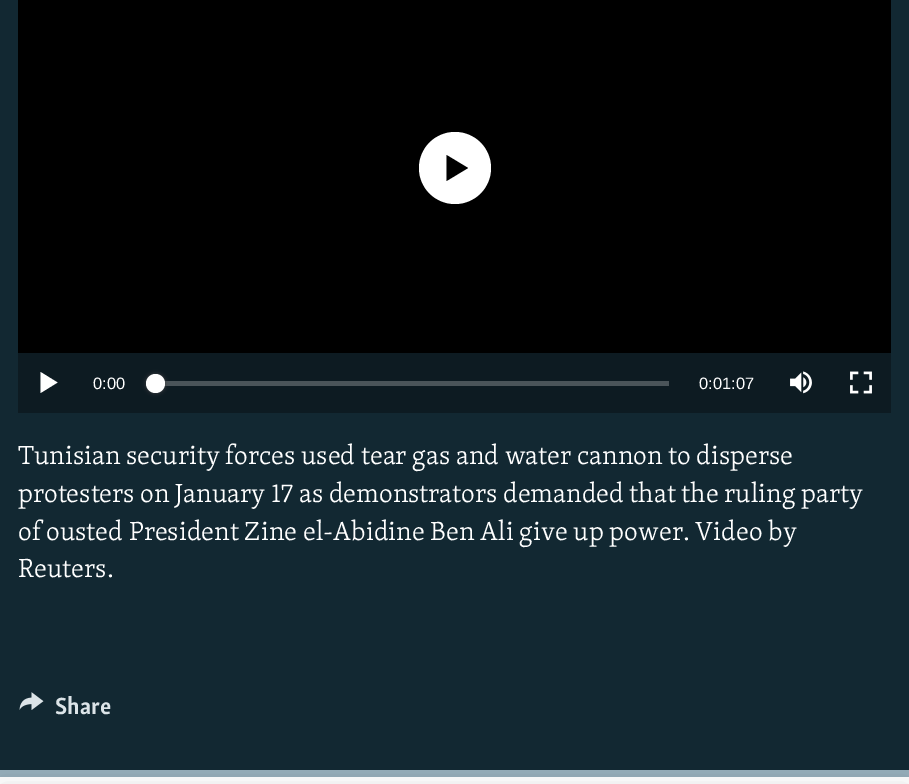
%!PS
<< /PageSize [909 784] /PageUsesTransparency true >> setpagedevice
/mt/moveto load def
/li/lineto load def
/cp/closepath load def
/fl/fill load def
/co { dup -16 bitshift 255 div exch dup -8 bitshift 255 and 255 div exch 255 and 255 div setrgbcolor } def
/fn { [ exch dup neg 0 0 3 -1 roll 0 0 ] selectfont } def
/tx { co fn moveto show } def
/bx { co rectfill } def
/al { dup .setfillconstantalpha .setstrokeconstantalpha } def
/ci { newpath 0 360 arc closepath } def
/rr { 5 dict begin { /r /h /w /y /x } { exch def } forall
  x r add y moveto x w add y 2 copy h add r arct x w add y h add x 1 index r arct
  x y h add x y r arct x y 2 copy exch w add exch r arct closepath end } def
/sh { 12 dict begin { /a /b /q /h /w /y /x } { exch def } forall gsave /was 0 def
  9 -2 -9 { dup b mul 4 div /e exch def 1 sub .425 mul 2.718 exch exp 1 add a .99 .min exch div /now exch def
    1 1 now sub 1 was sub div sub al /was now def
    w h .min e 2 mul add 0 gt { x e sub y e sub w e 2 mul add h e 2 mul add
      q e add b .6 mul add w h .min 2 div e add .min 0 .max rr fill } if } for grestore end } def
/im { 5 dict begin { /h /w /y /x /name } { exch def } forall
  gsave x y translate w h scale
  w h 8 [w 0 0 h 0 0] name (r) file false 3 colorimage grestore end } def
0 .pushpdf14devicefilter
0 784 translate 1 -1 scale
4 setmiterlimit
0 0 909 784 16#FFFFFF bx
0 0 909 770 16#122832 bx
0 770 909 7 16#95ADB9 bx
18 0 873 353 16#000000 bx
16#FFFFFF co
455 168 36 ci fl
16#000000 co
446.5 181 mt 468 168 li 446.5 155 li cp fl
18 353 873 60 16#0D1B22 bx
16#FFFFFF co
40.5 393 mt 57.5 382.5 li 40.5 372 li cp fl
164 381 505 5 16#4A5459 bx
16#414144 co
146 374 19 19 9.5 2 1 sh
16#FFFFFF co
155.5 383.5 9.5 ci fl
(media/1.raw) 790 371 22 23 im
(media/2.raw) 850 371 22 23 im
(media/3.raw) 19 692 25 18 im
16#000000 co
0 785 909 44 0 15 .1 sh
(0:00) 93 389 /LiberationSans-Regular 16.5 16#FFFFFF tx
(0:01:07) 699 389 /LiberationSans-Regular 16.5 16#FFFFFF tx
(Tunisian security forces used tear gas and water cannon to disperse) 18 464 /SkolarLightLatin-Light 27 16#FFFFFF tx
(protesters on January 17 as demonstrators demanded that the ruling party) 18 502 /SkolarLightLatin-Light 27 16#FFFFFF tx
(of ousted President Zine el-Abidine Ben Ali give up power. Video by) 18 540 /SkolarLightLatin-Light 27 16#FFFFFF tx
(Reuters.) 18 577 /SkolarLightLatin-Light 27 16#FFFFFF tx
(Share) 55 714 /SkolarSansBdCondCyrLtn-Bold 24 16#DCE4E8 tx
.poppdf14devicefilter showpage
